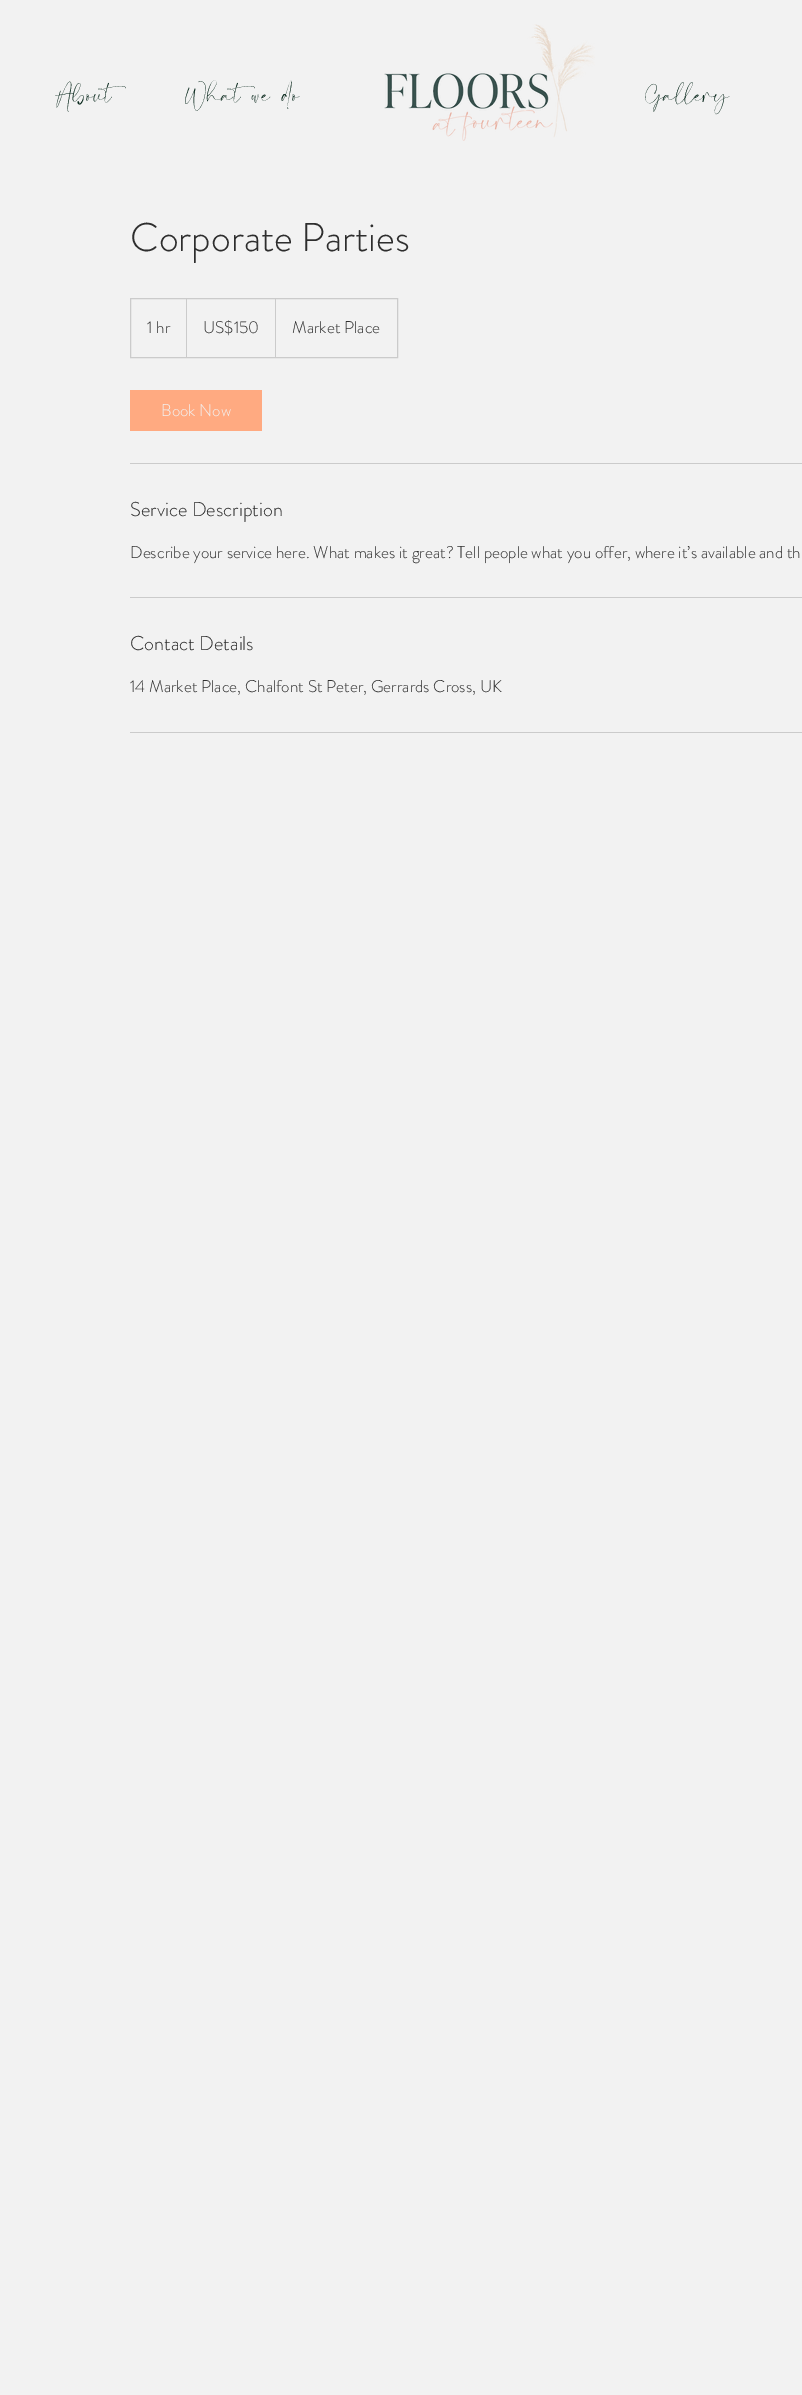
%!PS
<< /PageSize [802 2395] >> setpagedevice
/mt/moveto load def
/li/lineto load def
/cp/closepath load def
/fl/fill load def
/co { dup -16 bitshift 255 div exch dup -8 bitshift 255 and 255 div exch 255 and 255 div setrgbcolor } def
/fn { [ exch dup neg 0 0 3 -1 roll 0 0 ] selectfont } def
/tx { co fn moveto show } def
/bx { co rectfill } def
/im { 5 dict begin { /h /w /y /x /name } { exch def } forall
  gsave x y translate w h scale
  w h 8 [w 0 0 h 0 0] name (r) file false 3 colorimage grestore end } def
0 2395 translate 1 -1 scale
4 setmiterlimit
0 0 802 2395 16#F2F2F2 bx
(media/1.raw) 384 24 211 117 im
16#CBCBCB co
130.5 298.5 267 59 rectstroke
186 357 mt 186 298 li 187 299 li 187 357 li cp fl
275 357 mt 275 298 li 276 299 li 276 357 li cp fl
130 390 132 41 16#FFAA81 bx
130 463 672 1 16#CBCBCB bx
130 597 672 1 16#CBCBCB bx
130 732 672 1 16#CBCBCB bx
(About) 54 105 /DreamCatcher-Regular 30 16#0B2A1E tx
(What we do) 185 105 /DreamCatcher-Regular 30 16#0B2A1E tx
(Gallery) 644 105 /DreamCatcher-Regular 30 16#0B2A1E tx
(Corporate Parties) 130 251 /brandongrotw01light-Light 40 16#2E2E2E tx
(1 hr) 147 333 /brandongrotw01light-Light 17 16#2E2E2E tx
(US$150) 203 333 /brandongrotw01light-Light 17 16#2E2E2E tx
(Market Place) 292 333 /brandongrotw01light-Light 17 16#2E2E2E tx
(Book Now) 161 416 /brandongrotw01light-Light 17 16#F2F2F2 tx
(Service Description) 130 516 /brandongrotw01light-Light 20 16#2E2E2E tx
(Describe your service here. What makes it great? Tell people what you offer, where it’s available and th) 130 558 /brandongrotw01light-Light 17 16#2E2E2E tx
(Contact Details) 130 650 /brandongrotw01light-Light 20 16#2E2E2E tx
(14 Market Place, Chalfont St Peter, Gerrards Cross, UK) 130 692 /brandongrotw01light-Light 17 16#2E2E2E tx
showpage
